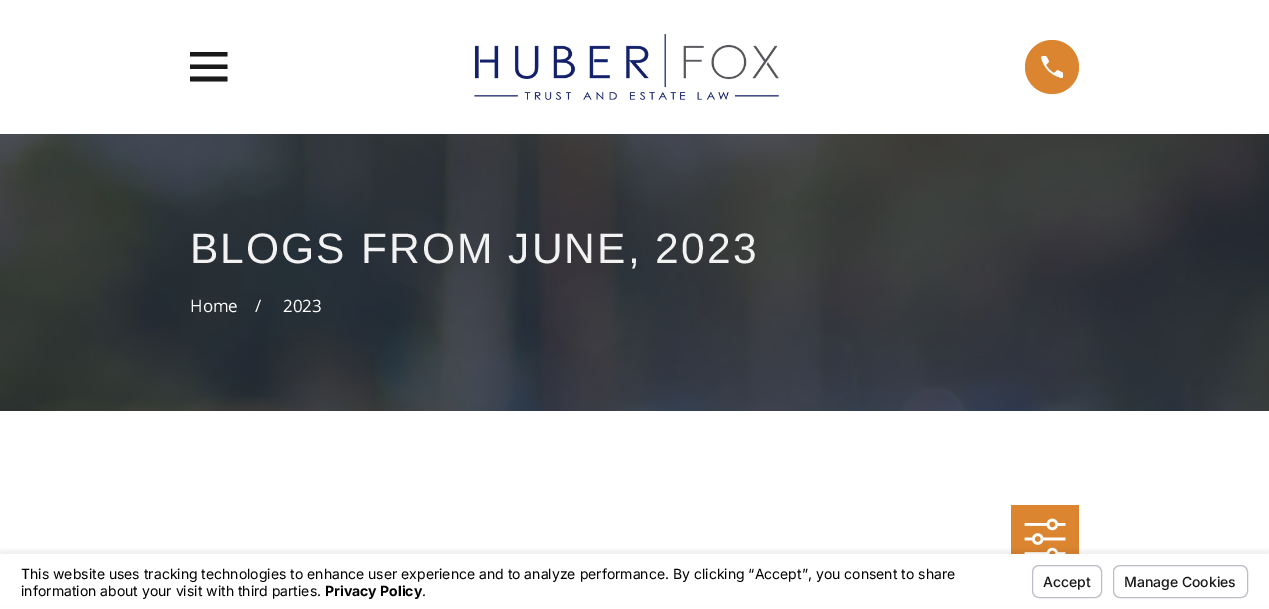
%!PS
<< /PageSize [1269 609] /PageUsesTransparency true >> setpagedevice
/mt/moveto load def
/li/lineto load def
/cp/closepath load def
/fl/fill load def
/st/stroke load def
/co { dup -16 bitshift 255 div exch dup -8 bitshift 255 and 255 div exch 255 and 255 div setrgbcolor } def
/fn { [ exch dup neg 0 0 3 -1 roll 0 0 ] selectfont } def
/tx { co fn moveto show } def
/bx { co rectfill } def
/al { dup .setfillconstantalpha .setstrokeconstantalpha } def
/ci { newpath 0 360 arc closepath } def
/rr { 5 dict begin { /r /h /w /y /x } { exch def } forall
  x r add y moveto x w add y 2 copy h add r arct x w add y h add x 1 index r arct
  x y h add x y r arct x y 2 copy exch w add exch r arct closepath end } def
/sh { 12 dict begin { /a /b /q /h /w /y /x } { exch def } forall gsave /was 0 def
  9 -2 -9 { dup b mul 4 div /e exch def 1 sub .425 mul 2.718 exch exp 1 add a .99 .min exch div /now exch def
    1 1 now sub 1 was sub div sub al /was now def
    w h .min e 2 mul add 0 gt { x e sub y e sub w e 2 mul add h e 2 mul add
      q e add b .6 mul add w h .min 2 div e add .min 0 .max rr fill } if } for grestore end } def
/im { 5 dict begin { /h /w /y /x /name } { exch def } forall
  gsave x y translate w h scale
  w h 8 [w 0 0 h 0 0] name (r) file false 3 colorimage grestore end } def
0 .pushpdf14devicefilter
0 609 translate 1 -1 scale
4 setmiterlimit
0 0 1269 609 16#FFFFFF bx
16#191919 co
190 52 mt 190 56.5 li 227.5 56.5 li 227.5 52 li cp 190 64.5 mt 190 69 li 227.5 69 li 227.5 64.5 li cp 190 76.5 mt 190 81.5 li 227.5 81.5 li 227.5 76.5 li cp fl
(media/1.raw) 474 34 305 66 im
16#DB8530 co
1052 67 27 ci fl
(media/2.raw) 1041 56 22 22 im
0 134 1269 277 16#202E49 bx
(media/3.raw) 0 134 1269 277 im
1011 505 68 49 16#DB8530 bx
(media/4.raw) 1024 518 42 36 im
16#000000 co
0 550 1269 55 0 1.5 .05 sh
0 554 1269 52 16#FFFFFF bx
16#BCBEC7 co
1032.5 565.5 69 32 6.5 rr st
1113.5 565.5 134 32 6.5 rr st
/LiberationSans-Regular 42.5 fn
16#F2F2F2 co
190 263 mt 2.1 0 (BLOGS FROM JUNE, 2023) ashow
(Home) 190 312 /OpenSans-Regular 17 16#FFFFFF tx
(/) 255 312 /OpenSans-Regular 17 16#FFFFFF tx
(2023) 283 312 /OpenSans-Regular 17 16#FFFFFF tx
(This website uses tracking technologies to enhance user experience and to analyze performance. By clicking “Accept”, you consent to share) 21 579 /Inter-Regular 14 16#000000 tx
(information about your visit with third parties.) 21 596 /Inter-Regular 14 16#000000 tx
(Privacy Policy) 325 596 /Inter-Bold 14 16#000000 tx
(.) 422 596 /Inter-Regular 14 16#000000 tx
(Accept) 1043 587 /Inter-Medium 14 16#191919 tx
(Manage Cookies) 1124 587 /Inter-Medium 14 16#191919 tx
.poppdf14devicefilter showpage
